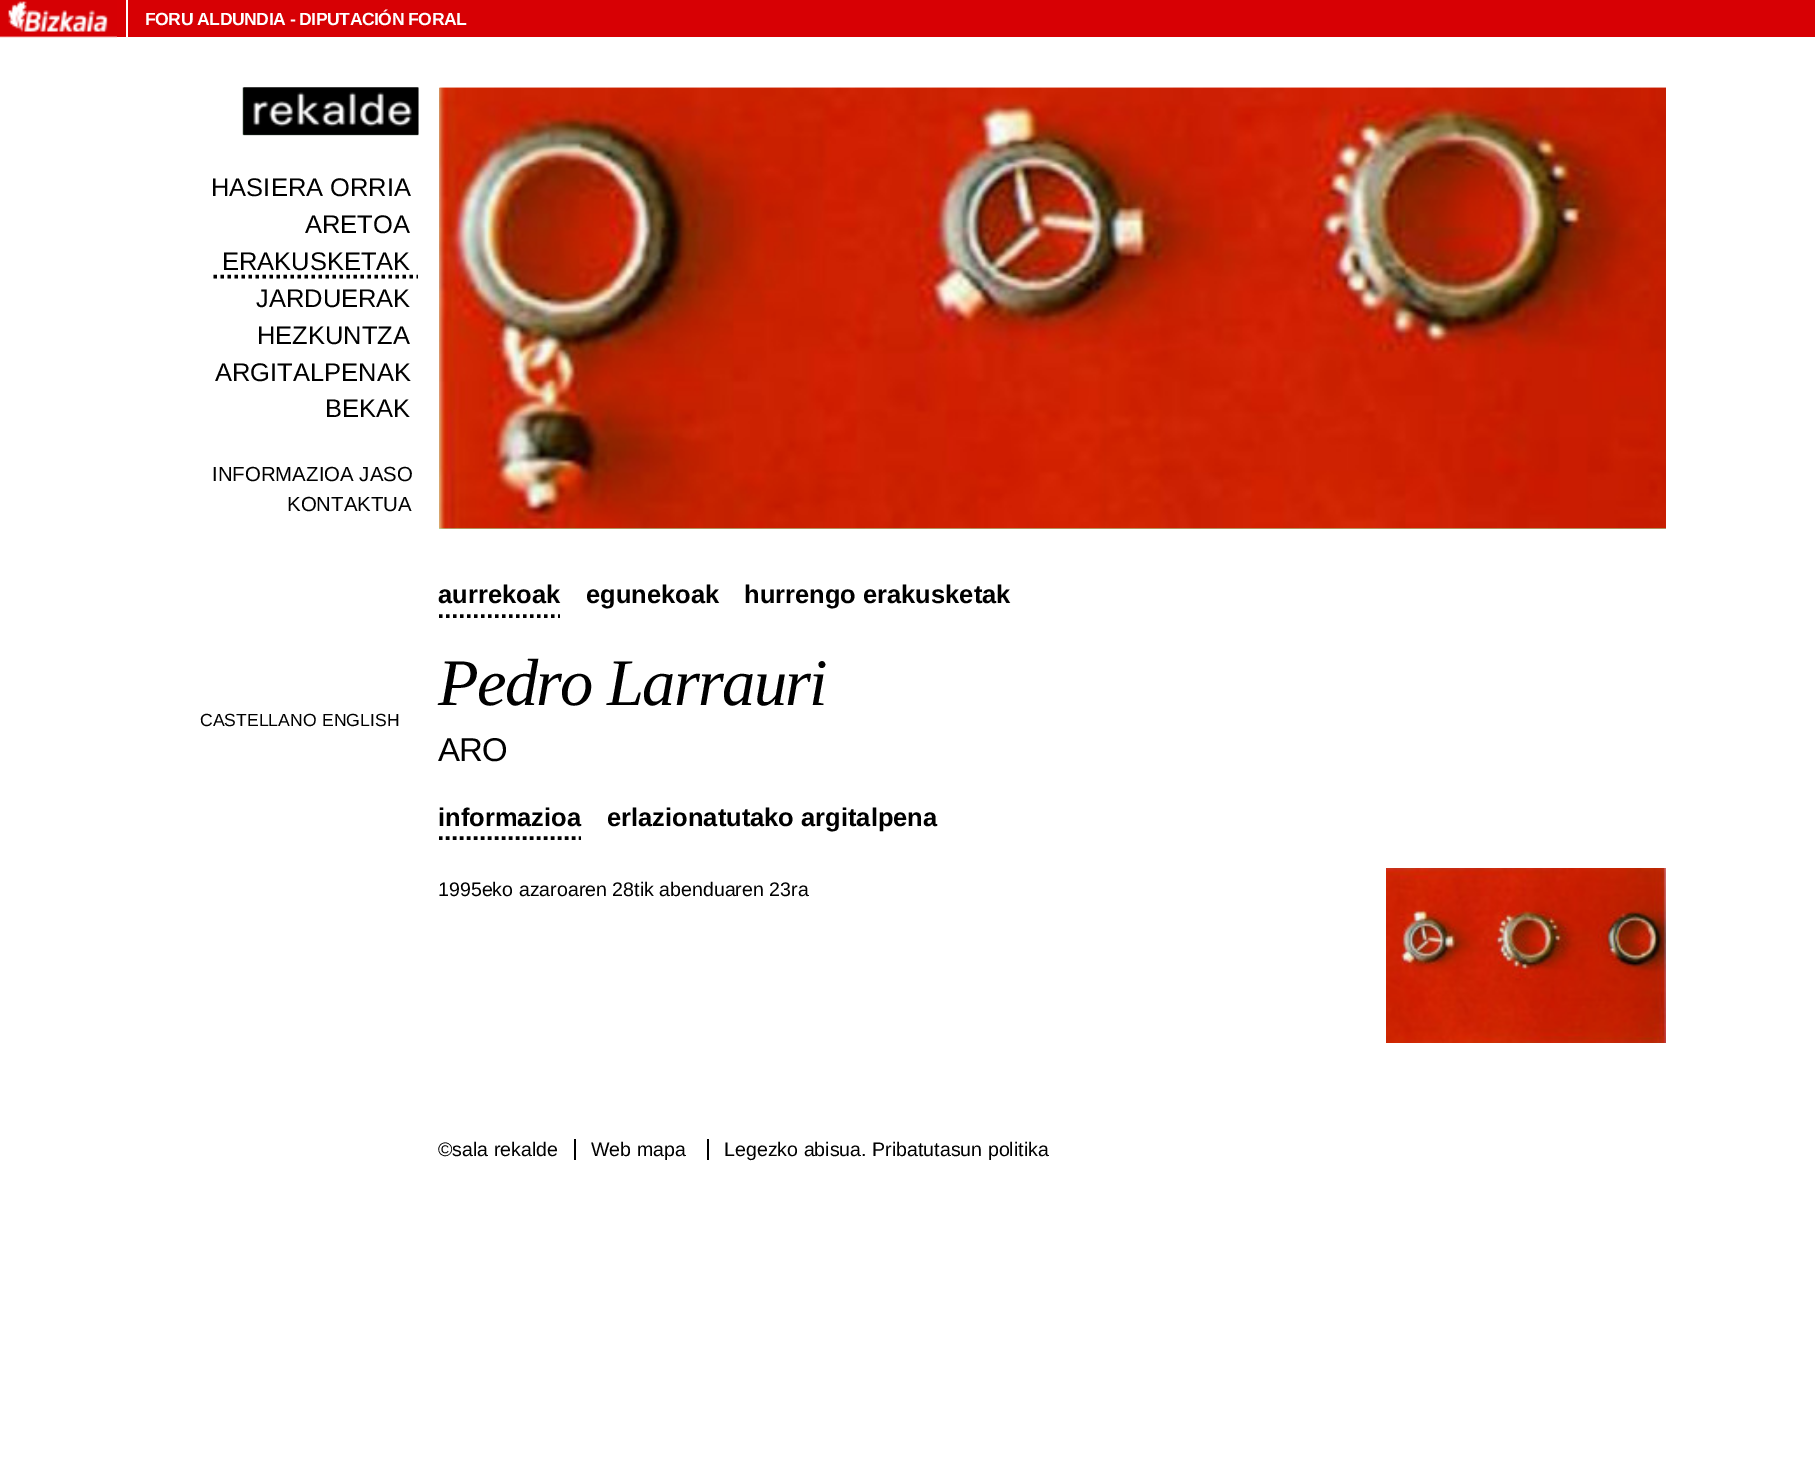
%!PS
<< /PageSize [1815 1471] >> setpagedevice
/mt/moveto load def
/li/lineto load def
/st/stroke load def
/lw/setlinewidth load def
/co { dup -16 bitshift 255 div exch dup -8 bitshift 255 and 255 div exch 255 and 255 div setrgbcolor } def
/fn { [ exch dup neg 0 0 3 -1 roll 0 0 ] selectfont } def
/tx { co fn moveto show } def
/bx { co rectfill } def
/im { 5 dict begin { /h /w /y /x /name } { exch def } forall
  gsave x y translate w h scale
  w h 8 [w 0 0 h 0 0] name (r) file false 3 colorimage grestore end } def
0 1471 translate 1 -1 scale
4 setmiterlimit
0 0 1815 1471 16#FFFFFF bx
117 0 1698 37 16#D70004 bx
(media/1.raw) 0 0 117 38 im
126 0 2 42 16#FFFFFF bx
243 88 175 47 16#99EEAA bx
(media/2.raw) 242 87 177 49 im
(media/3.raw) 242 87 177 48 im
16#000000 co
3.5 lw
[3.5 3.5] 0 setdash
213.5 276.5 mt 418 276.5 li st
439 88 1227 441 16#99EEAA bx
(media/4.raw) 439 87 1227 442 im
(media/5.raw) 439 87 1227 442 im
16#000000 co
439 616 mt 560 616 li st
439 838 mt 581 838 li st
(media/6.raw) 1386 868 280 175 im
574 1139 2 21 16#000000 bx
707 1139 2 21 16#000000 bx
/LiberationSans-Bold 17.6 fn
16#FFFFFF co
145 25 mt -.5 0 (FORU ALDUNDIA - DIPUTACIÓN FORAL) ashow
(HASIERA ORRIA) 211 196 /LiberationSans-Regular 25.5 16#000000 tx
(ARETOA) 305 233 /LiberationSans-Regular 25.5 16#000000 tx
(ERAKUSKETAK) 222 270 /LiberationSans-Regular 25.5 16#000000 tx
(JARDUERAK) 256 307 /LiberationSans-Regular 25.5 16#000000 tx
(HEZKUNTZA) 257 344 /LiberationSans-Regular 25.5 16#000000 tx
(ARGITALPENAK) 215 381 /LiberationSans-Regular 25.5 16#000000 tx
(BEKAK) 325 417 /LiberationSans-Regular 25.5 16#000000 tx
(INFORMAZIOA JASO) 212 481 /LiberationSans-Regular 20.4 16#000000 tx
(KONTAKTUA) 287 511 /LiberationSans-Regular 20.4 16#000000 tx
(CASTELLANO) 200 726 /LiberationSans-Regular 17.6 16#000000 tx
(ENGLISH) 322 726 /LiberationSans-Regular 17.6 16#000000 tx
(aurrekoak) 438 603 /LiberationSans-Bold 25.5 16#000000 tx
(egunekoak) 586 603 /LiberationSans-Bold 25.5 16#000000 tx
(hurrengo erakusketak) 744 603 /LiberationSans-Bold 25.5 16#000000 tx
/LiberationSerif-Italic 66.5 fn
438 705 mt -1.7 0 (Pedro Larrauri) ashow
/LiberationSans-Regular 33 fn
438 761 mt -1 0 (ARO) ashow
(informazioa) 438 826 /LiberationSans-Bold 25.5 16#000000 tx
(erlazionatutako argitalpena) 607 826 /LiberationSans-Bold 25.5 16#000000 tx
(1995eko azaroaren 28tik abenduaren 23ra) 438 896 /LiberationSans-Regular 19.6 16#000000 tx
(©sala rekalde) 438 1156 /LiberationSans-Regular 19.6 16#000000 tx
(Web mapa) 591 1156 /LiberationSans-Regular 19.6 16#000000 tx
(Legezko abisua. Pribatutasun politika) 724 1156 /LiberationSans-Regular 19.6 16#000000 tx
showpage
